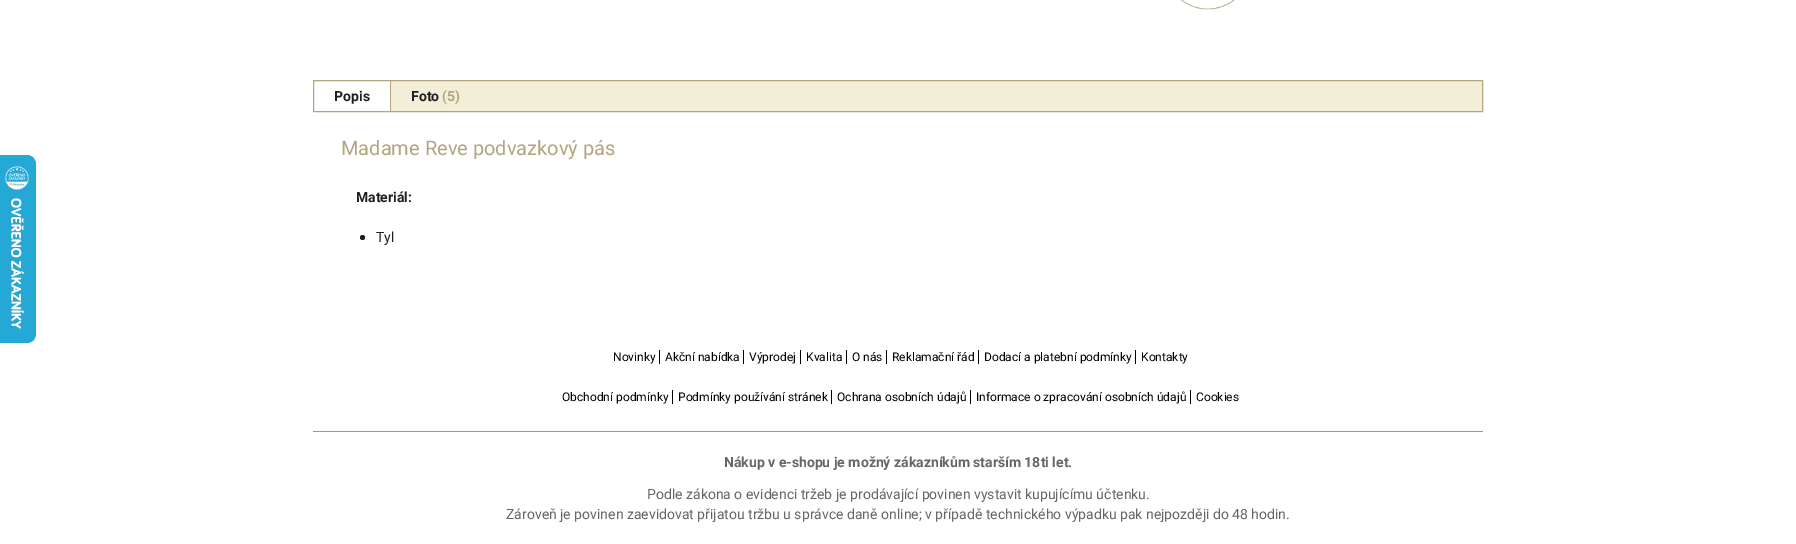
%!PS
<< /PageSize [1796 544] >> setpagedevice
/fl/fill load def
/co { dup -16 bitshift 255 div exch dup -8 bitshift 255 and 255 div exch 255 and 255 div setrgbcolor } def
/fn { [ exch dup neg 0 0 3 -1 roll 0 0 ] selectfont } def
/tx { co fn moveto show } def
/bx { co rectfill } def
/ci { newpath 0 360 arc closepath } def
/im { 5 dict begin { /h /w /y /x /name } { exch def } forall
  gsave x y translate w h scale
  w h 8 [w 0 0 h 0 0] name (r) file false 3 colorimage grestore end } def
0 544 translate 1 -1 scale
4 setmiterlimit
0 0 1796 544 16#FFFFFF bx
(media/1.raw) 0 155 36 188 im
(media/2.raw) 1180 0 55 10 im
391 81 1091 30 16#F3EED8 bx
16#B2A57F co
313.5 80.5 1169 31 rectstroke
390 81 1 30 16#B2A57F bx
16#1E1E1E co
362.5 237.5 2.5 ci fl
659 350 1 14 16#000000 bx
743 350 1 14 16#000000 bx
800 350 1 14 16#000000 bx
846 350 1 14 16#000000 bx
886 350 1 14 16#000000 bx
978 350 1 14 16#000000 bx
1135 350 1 14 16#000000 bx
672 390 1 14 16#000000 bx
831 390 1 14 16#000000 bx
970 390 1 14 16#000000 bx
1190 390 1 14 16#000000 bx
313 431 1170 1 16#999999 bx
(Popis) 334 101 /Roboto-Bold 14 16#1F1F1F tx
(Foto) 411 101 /Roboto-Bold 14 16#1F1F1F tx
(\(5\)) 442 101 /Roboto-Bold 14 16#B2A57F tx
(Madame Reve podvazkový pás) 341 155 /Roboto-Regular 20 16#B2A57F tx
(Materiál:) 356 202 /Roboto-Bold 14 16#1F1F1F tx
(Tyl) 376 242 /Roboto-Regular 14 16#1F1F1F tx
(Novinky) 613 361 /Roboto-Regular 12 16#000000 tx
(Akční nabídka) 665 361 /Roboto-Regular 12 16#000000 tx
(Výprodej) 749 361 /Roboto-Regular 12 16#000000 tx
(Kvalita) 806 361 /Roboto-Regular 12 16#000000 tx
(O nás) 852 361 /Roboto-Regular 12 16#000000 tx
(Reklamační řád) 892 361 /Roboto-Regular 12 16#000000 tx
(Dodací a platební podmínky) 984 361 /Roboto-Regular 12 16#000000 tx
(Kontakty) 1141 361 /Roboto-Regular 12 16#000000 tx
(Obchodní podmínky) 562 401 /Roboto-Regular 12 16#000000 tx
(Podmínky používání stránek) 678 401 /Roboto-Regular 12 16#000000 tx
(Ochrana osobních údajů) 837 401 /Roboto-Regular 12 16#000000 tx
(Informace o zpracování osobních údajů) 976 401 /Roboto-Regular 12 16#000000 tx
(Cookies) 1196 401 /Roboto-Regular 12 16#000000 tx
(Nákup v e-shopu je možný zákazníkům starším 18ti let.) 724 467 /Roboto-Bold 14 16#666666 tx
(Podle zákona o evidenci tržeb je prodávající povinen vystavit kupujícímu účtenku.) 647 499 /Roboto-Regular 14 16#666666 tx
(Zároveň je povinen zaevidovat přijatou tržbu u správce daně online; v případě technického výpadku pak nejpozději do 48 hodin.) 506 519 /Roboto-Regular 14 16#666666 tx
showpage
